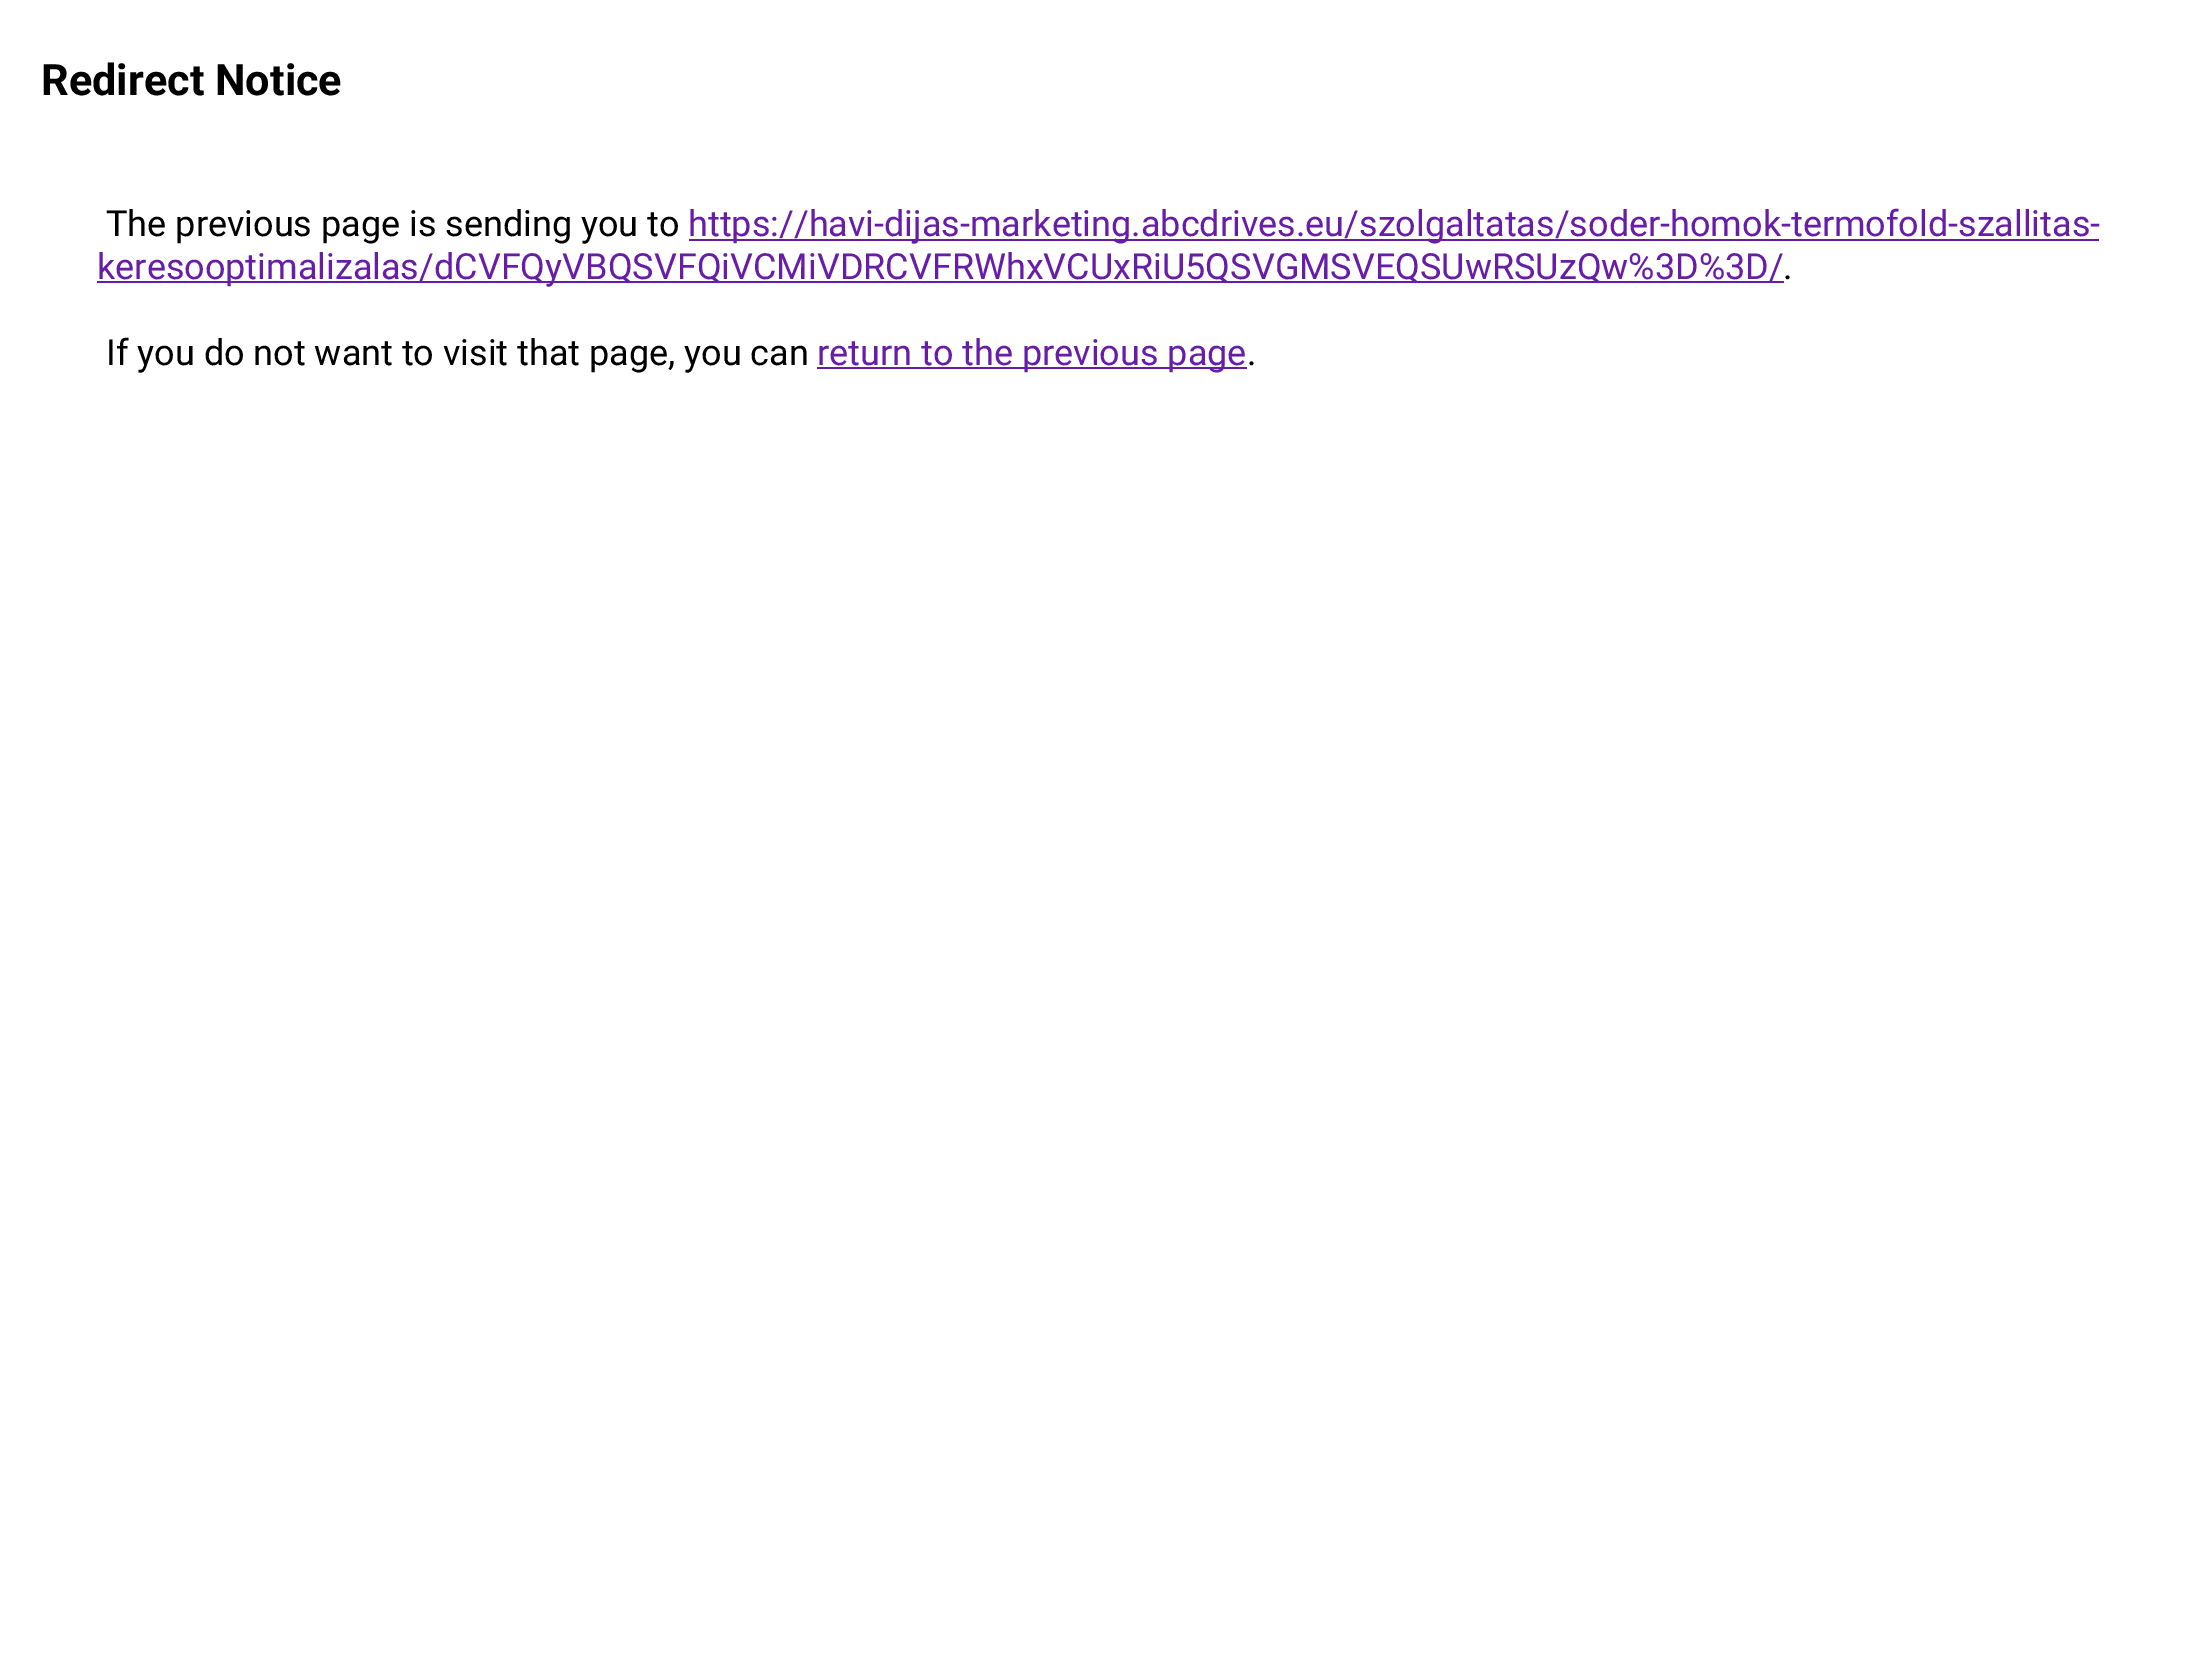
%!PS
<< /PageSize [2206 1676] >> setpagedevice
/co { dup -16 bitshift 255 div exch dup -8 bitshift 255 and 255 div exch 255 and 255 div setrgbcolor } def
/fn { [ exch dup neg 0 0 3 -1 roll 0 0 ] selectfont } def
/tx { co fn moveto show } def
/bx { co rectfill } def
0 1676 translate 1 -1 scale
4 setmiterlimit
0 0 2206 1676 16#FFFFFF bx
689 239 1410 2 16#681DA8 bx
97 281 1687 2 16#681DA8 bx
817 367 430 2 16#681DA8 bx
(Redirect Notice) 41 95 /Roboto-Bold 43.25 16#000000 tx
(The previous page is sending you to) 106 236 /Roboto-Regular 36 16#000000 tx
(https://havi-dijas-marketing.abcdrives.eu/szolgaltatas/soder-homok-termofold-szallitas-) 688 236 /Roboto-Regular 36 16#681DA8 tx
(keresooptimalizalas/dCVFQyVBQSVFQiVCMiVDRCVFRWhxVCUxRiU5QSVGMSVEQSUwRSUzQw%3D%3D/) 97 279 /Roboto-Regular 36 16#681DA8 tx
(.) 1783 279 /Roboto-Regular 36 16#000000 tx
(If you do not want to visit that page, you can) 106 365 /Roboto-Regular 36 16#000000 tx
(return to the previous page) 817 365 /Roboto-Regular 36 16#681DA8 tx
(.) 1247 365 /Roboto-Regular 36 16#000000 tx
showpage
